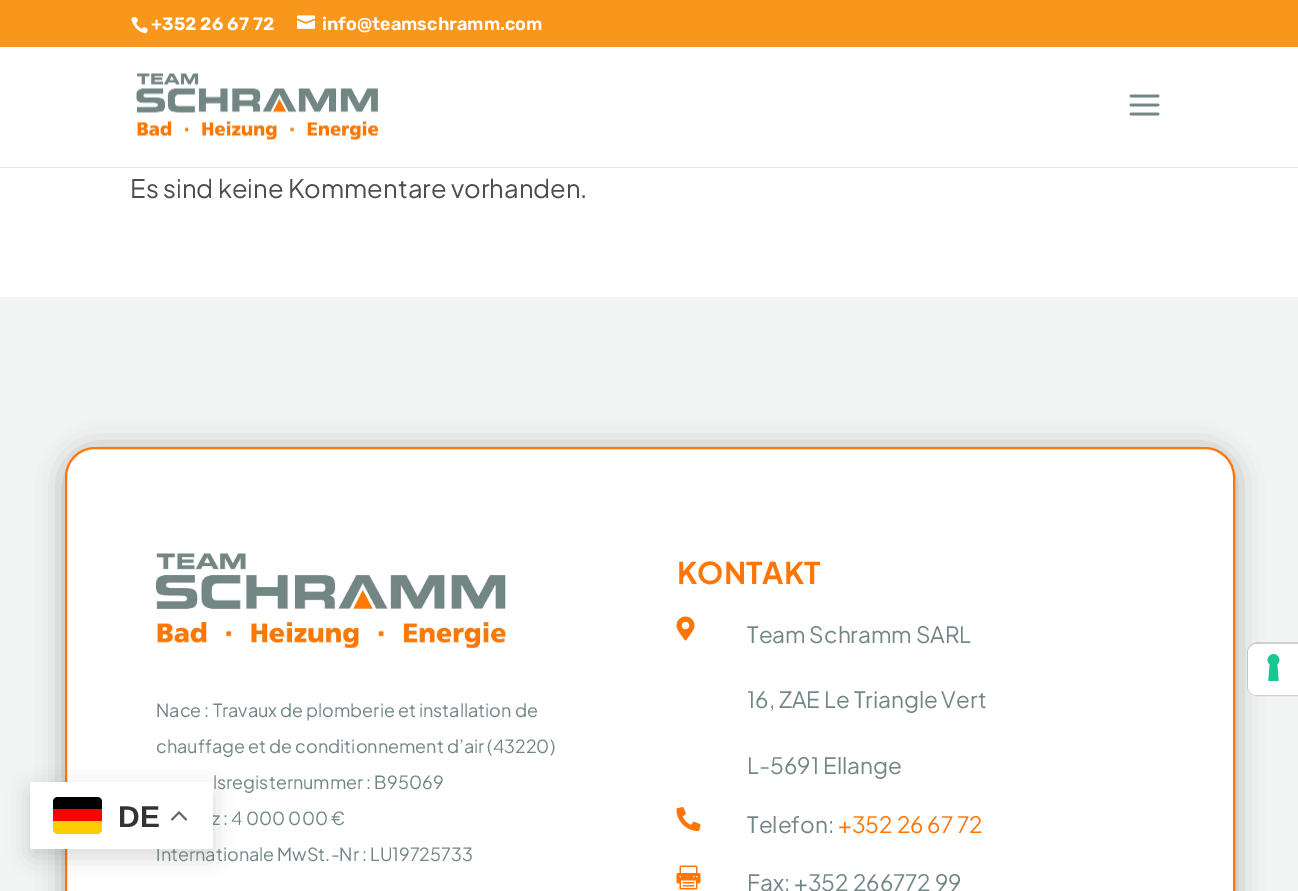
%!PS
<< /PageSize [1298 891] /PageUsesTransparency true >> setpagedevice
/mt/moveto load def
/li/lineto load def
/ct/curveto load def
/cp/closepath load def
/fl/fill load def
/st/stroke load def
/gs/gsave load def
/gr/grestore load def
/lw/setlinewidth load def
/co { dup -16 bitshift 255 div exch dup -8 bitshift 255 and 255 div exch 255 and 255 div setrgbcolor } def
/fn { [ exch dup neg 0 0 3 -1 roll 0 0 ] selectfont } def
/tx { co fn moveto show } def
/bx { co rectfill } def
/al { dup .setfillconstantalpha .setstrokeconstantalpha } def
/rr { 5 dict begin { /r /h /w /y /x } { exch def } forall
  x r add y moveto x w add y 2 copy h add r arct x w add y h add x 1 index r arct
  x y h add x y r arct x y 2 copy exch w add exch r arct closepath end } def
/sh { 12 dict begin { /a /b /q /h /w /y /x } { exch def } forall gsave /was 0 def
  9 -2 -9 { dup b mul 4 div /e exch def 1 sub .425 mul 2.718 exch exp 1 add a .99 .min exch div /now exch def
    1 1 now sub 1 was sub div sub al /was now def
    w h .min e 2 mul add 0 gt { x e sub y e sub w e 2 mul add h e 2 mul add
      q e add b .6 mul add w h .min 2 div e add .min 0 .max rr fill } if } for grestore end } def
/im { 5 dict begin { /h /w /y /x /name } { exch def } forall
  gsave x y translate w h scale
  w h 8 [w 0 0 h 0 0] name (r) file false 3 colorimage grestore end } def
0 .pushpdf14devicefilter
0 891 translate 1 -1 scale
4 setmiterlimit
0 0 1298 891 16#FFFFFF bx
0 0 1298 47 16#F9961C bx
(media/1.raw) 131 16 17 18 im
(media/2.raw) 297 15 18 14 im
0 167 1298 1 16#E6E6E6 bx
(media/3.raw) 136 73 242 67 im
(media/4.raw) 1129 94 31 22 im
0 297 1298 594 16#F2F4F4 bx
16#000000 co
65 450 1170 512 30 13.5 .3 sh
16#FFFFFF co
66 448 1168 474 29 rr gs fl gr
16#FF7607 co
2 lw
st
(media/5.raw) 156 553 350 95 im
(media/6.raw) 676 616 19 25 im
(media/7.raw) 676 807 25 24 im
(media/8.raw) 676 865 25 25 im
0.15 al
16#000000 co
1258 643 mt 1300 643 li 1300 695 li 1258 695 li 1252.5 695 1248 690.5 1248 685 ct 1248 653 li 1248 647.5 1252.5 643 1258 643 ct cp st
1 al
16#FFFFFF co
1257 644 mt 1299 644 li 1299 695 li 1257 695 li 1252 695 1248 691 1248 686 ct 1248 653 li 1248 648 1252 644 1257 644 ct cp fl
(media/9.raw) 1267 654 13 27 im
16#000000 co
30 789 183 68 3 11 .15 sh
(+352 26 67 72) 151 30 /Rubik-SemiBold 18 16#FFFFFF tx
(info@teamschramm.com) 322 30 /Rubik-SemiBold 18 16#FFFFFF tx
(Es sind keine Kommentare vorhanden.) 130 198 /PlusJakartaSans-Regular 25.5 16#4D4D4D tx
(Nace : Travaux de plomberie et installation de) 156 717 /PlusJakartaSans-Regular 18 16#718685 tx
(chauffage et de conditionnement d’air \(43220\)) 156 753 /PlusJakartaSans-Regular 18 16#718685 tx
(lsregisternummer : B95069) 213 789 /PlusJakartaSans-Regular 18 16#718685 tx
(z : 4 000 000 €) 212 825 /PlusJakartaSans-Regular 18 16#718685 tx
(Internationale MwSt.-Nr : LU19725733) 156 861 /PlusJakartaSans-Regular 18 16#718685 tx
(KONTAKT) 677 584 /PlusJakartaSans-Bold 30 16#FF7607 tx
(Team Schramm SARL) 747 643 /PlusJakartaSans-Regular 22.5 16#718685 tx
(16, ZAE Le Triangle Vert) 747 708 /PlusJakartaSans-Regular 22.5 16#718685 tx
(L-5691 Ellange) 747 774 /PlusJakartaSans-Regular 22.5 16#718685 tx
(Telefon:) 747 833 /PlusJakartaSans-Regular 22.5 16#718685 tx
(+352 26 67 72) 838 833 /PlusJakartaSans-Regular 22.5 16#FF7607 tx
(Fax: +352 266772 99) 747 891 /PlusJakartaSans-Regular 22.5 16#718685 tx
16#FFFFFF co
30 782 183 67 3 rr fl
16#FFCC00 co
53 821 mt 102 821 li 102 829 li 102 832 100 834 97 834 ct 58 834 li 55 834 53 832 53 829 ct cp fl
16#000000 co
58 797 mt 97 797 li 100 797 102 799 102 802 ct 102 809 li 53 809 li 53 802 li 53 799 55 797 58 797 ct cp fl
53 809 49 12 16#FF0000 bx
(DE) 118 827 /LiberationSans-Bold 30 16#333333 tx
(media/10.raw) 171 811 17 10 im
.poppdf14devicefilter showpage
